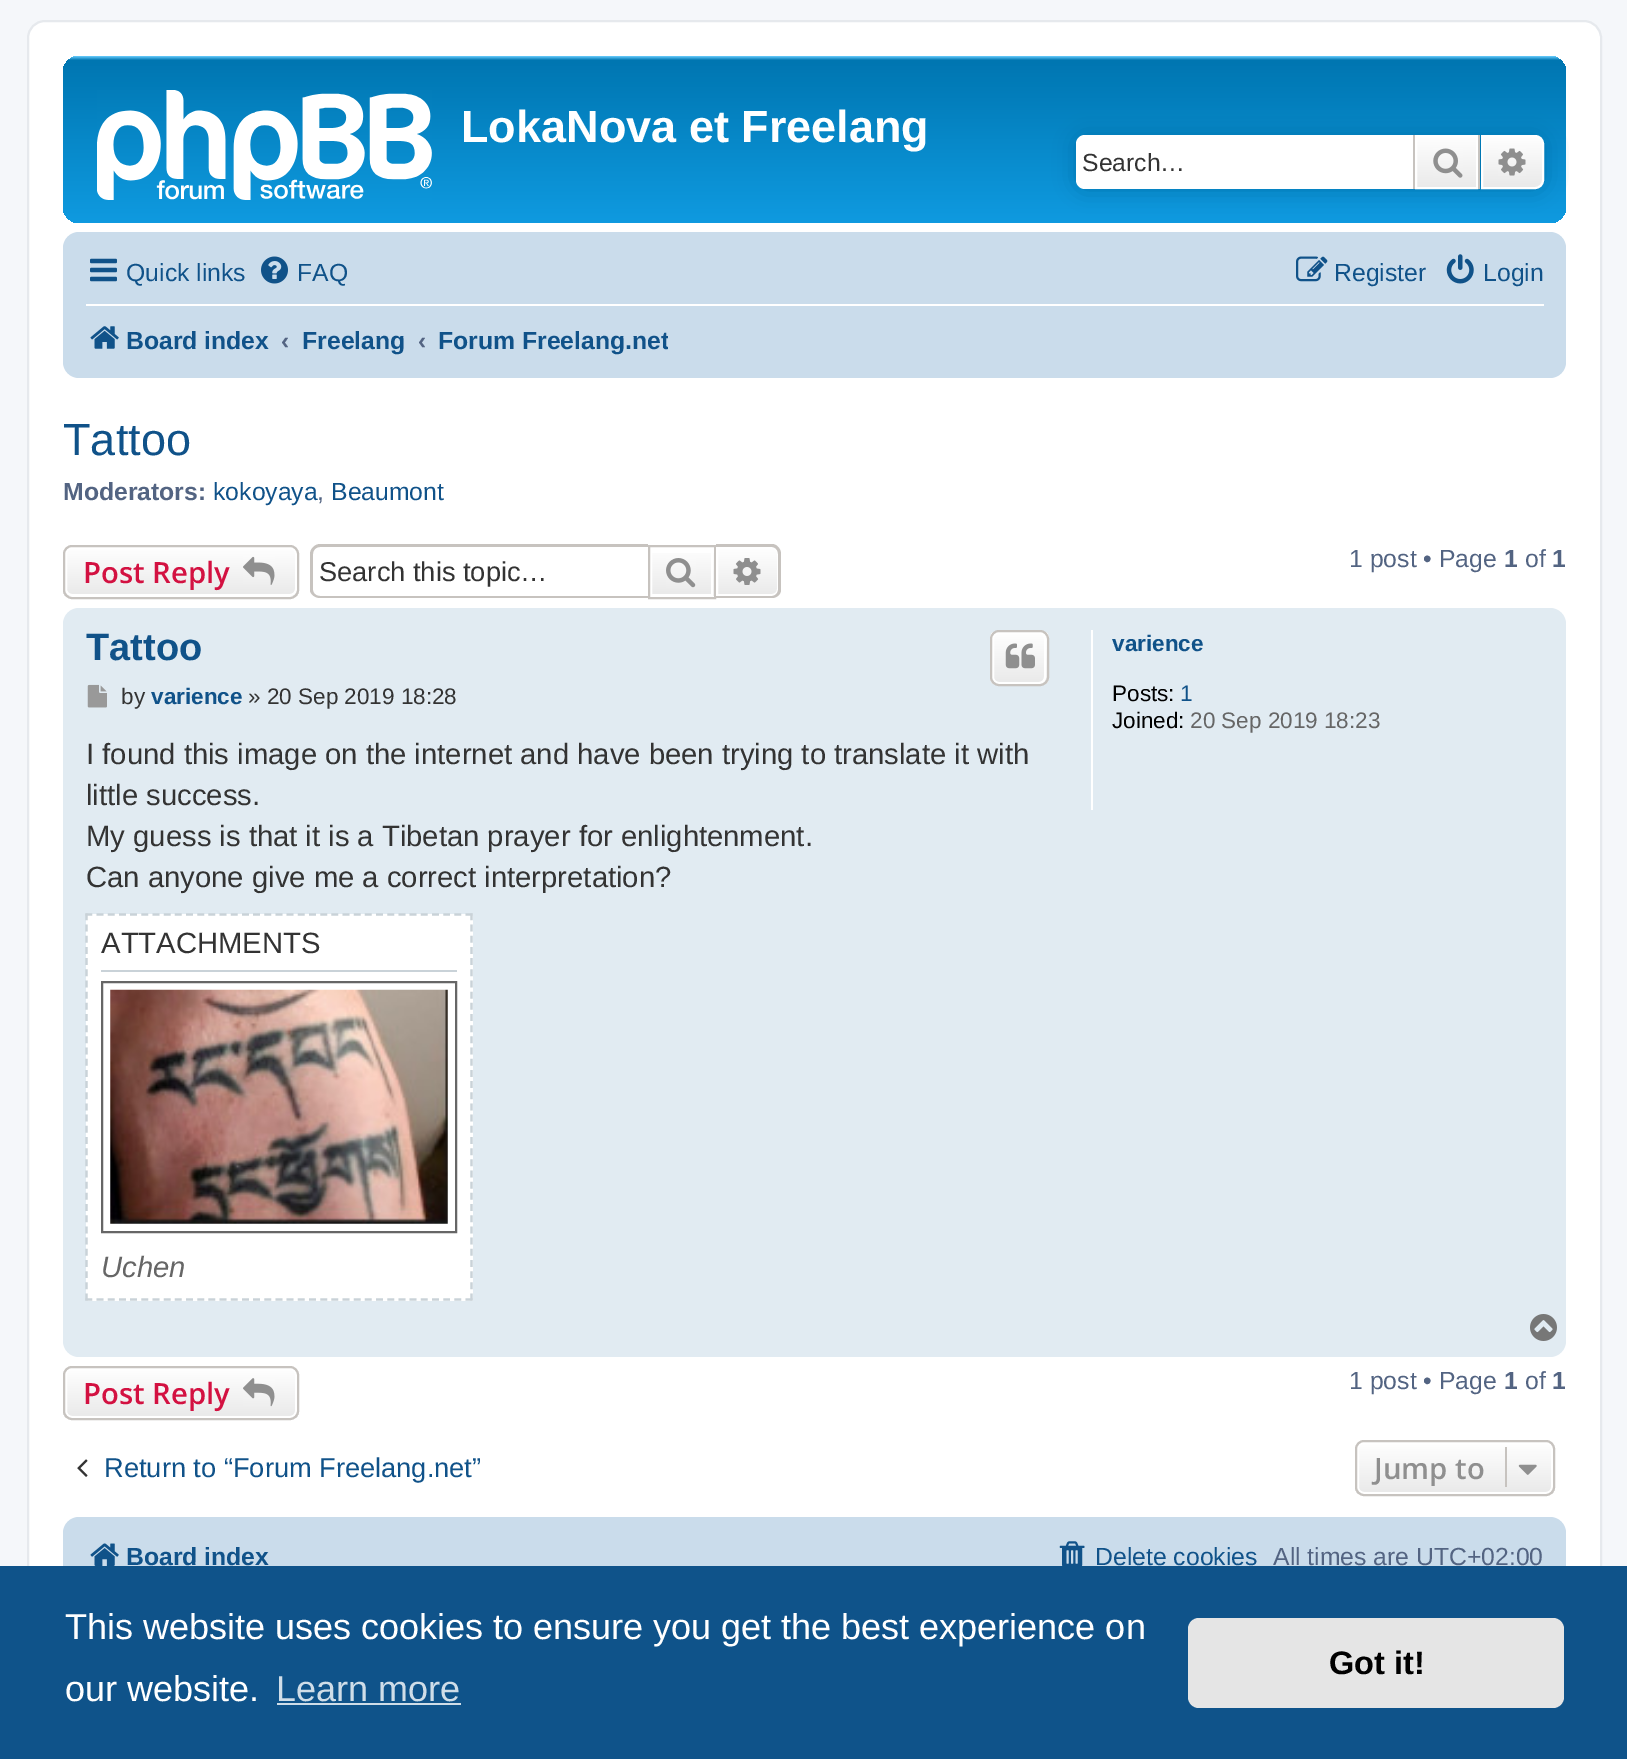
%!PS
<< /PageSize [1627 1759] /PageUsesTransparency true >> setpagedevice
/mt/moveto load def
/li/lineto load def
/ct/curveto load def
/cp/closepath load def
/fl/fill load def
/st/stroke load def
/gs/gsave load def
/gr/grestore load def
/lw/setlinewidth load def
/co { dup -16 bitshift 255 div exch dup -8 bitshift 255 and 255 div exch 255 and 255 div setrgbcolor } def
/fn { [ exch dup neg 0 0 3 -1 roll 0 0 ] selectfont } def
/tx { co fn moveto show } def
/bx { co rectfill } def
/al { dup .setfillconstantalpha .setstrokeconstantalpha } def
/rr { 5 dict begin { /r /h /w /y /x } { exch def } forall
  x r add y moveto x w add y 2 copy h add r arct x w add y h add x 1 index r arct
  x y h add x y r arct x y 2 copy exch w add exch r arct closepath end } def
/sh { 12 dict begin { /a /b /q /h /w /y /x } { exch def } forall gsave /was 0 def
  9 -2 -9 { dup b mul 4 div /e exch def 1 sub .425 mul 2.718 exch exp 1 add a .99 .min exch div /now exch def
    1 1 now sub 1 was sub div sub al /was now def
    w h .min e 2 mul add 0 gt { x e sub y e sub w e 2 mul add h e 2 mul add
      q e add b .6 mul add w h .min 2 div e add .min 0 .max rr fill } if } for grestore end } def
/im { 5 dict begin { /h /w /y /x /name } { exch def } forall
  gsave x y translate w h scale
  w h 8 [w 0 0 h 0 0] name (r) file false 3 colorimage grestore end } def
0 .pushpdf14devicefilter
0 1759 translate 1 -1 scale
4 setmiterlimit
0 0 1627 1759 16#F5F7FA bx
16#FFFFFF co
28 21 1573 1735 17 rr gs fl gr
16#E6E9ED co
2 lw
st
gs 63 56 1503 167 16 rr clip newpath
<< /ShadingType 2 /ColorSpace /DeviceRGB /Coords [815 56 815 263] /Extend [true true] /Function << /FunctionType 3 /Domain [0 1] /Functions [<< /FunctionType 2 /Domain [0 1] /C0 [.416 .808 1] /C1 [0 .463 .694] /N 1 >> << /FunctionType 2 /Domain [0 1] /C0 [0 .463 .694] /C1 [.071 .639 .922] /N 1 >>] /Bounds [.02] /Encode [0 1 0 1] >> >> shfill gr
(media/1.raw) 97 90 335 110 im
16#0075B0 co
1076 135 468 54 9 11 1 sh
16#FFFFFF co
1085 135 mt 1413 135 li 1413 189 li 1085 189 li 1080 189 1076 185 1076 180 ct 1076 144 li 1076 139 1080 135 1085 135 ct cp fl
gs 1417 137 mt 1476 137 li 1476 187 li 1417 187 li cp clip newpath
<< /ShadingType 2 /ColorSpace /DeviceRGB /Coords [1447 135 1447 189] /Extend [true true] /Function << /FunctionType 2 /Domain [0 1] /C0 [1 1 1] /C1 [.914 .914 .914] /N 1 >> >> shfill gr
1416 136 61 52 rectstroke
1478 135 2 54 16#C7C3BF bx
1413 135 2 54 16#C7C3BF bx
(media/2.raw) 1433 148 30 30 im
gs 1482 136 mt 1535 136 li 1539.5 136 1543 139.5 1543 144 ct 1543 180 li 1543 184.5 1539.5 188 1535 188 ct 1482 188 li cp clip newpath
<< /ShadingType 2 /ColorSpace /DeviceRGB /Coords [1512 135 1512 189] /Extend [true true] /Function << /FunctionType 2 /Domain [0 1] /C0 [1 1 1] /C1 [.914 .914 .914] /N 1 >> >> shfill gr
16#FFFFFF co
1482 136 mt 1535 136 li 1539.5 136 1543 139.5 1543 144 ct 1543 180 li 1543 184.5 1539.5 188 1535 188 ct 1482 188 li cp st
(media/3.raw) 1498 148 28 28 im
16#CADCEB co
63 232 1503 146 16 rr fl
(media/4.raw) 90 258 27 24 im
(media/5.raw) 261 256 27 28 im
(media/6.raw) 1296 256 32 26 im
(media/7.raw) 1446 254 28 30 im
86 304 1458 2 16#FFFFFF bx
(media/8.raw) 90 326 29 23 im
gs
63 545 236 54 9 rr clip newpath
gs 63 547 mt 299 547 li 299 596 li 63 596 li cp clip newpath
<< /ShadingType 2 /ColorSpace /DeviceRGB /Coords [181 547 181 596] /Extend [true true] /Function << /FunctionType 2 /Domain [0 1] /C0 [1 1 1] /C1 [.914 .914 .914] /N 1 >> >> shfill gr
gr
66 548 230 47 6 rr st
16#C7C3BF co
64 546 234 52 8 rr st
(media/9.raw) 243 556 32 29 im
320 544 mt 648 544 li 648 598 li 320 598 li 315 598 310 594 310 590 ct 310 554 li 310 549 315 544 320 544 ct cp 320 547 mt 648 547 li 648 596 li 320 596 li 316 596 313 593 313 590 ct 313 554 li 313 550 316 547 320 547 ct cp eofill
gs 652 553 mt 714 553 li 714 596 li 652 596 li cp clip newpath
<< /ShadingType 2 /ColorSpace /DeviceRGB /Coords [682 547 682 596] /Extend [true true] /Function << /FunctionType 2 /Domain [0 1] /C0 [1 1 1] /C1 [.914 .914 .914] /N 1 >> >> shfill gr
16#FFFFFF co
651 548 61 47 rectstroke
16#C7C3BF co
649 546 66 52 rectstroke
(media/10.raw) 666 558 30 30 im
gs 717 548 mt 772 548 li 775.5 548 778 550.5 778 554 ct 778 589 li 778 592.5 775.5 595 772 595 ct 717 595 li cp clip newpath
<< /ShadingType 2 /ColorSpace /DeviceRGB /Coords [747 547 747 596] /Extend [true true] /Function << /FunctionType 2 /Domain [0 1] /C0 [1 1 1] /C1 [.914 .914 .914] /N 1 >> >> shfill gr
16#FFFFFF co
717 548 mt 772 548 li 775.5 548 778 550.5 778 554 ct 778 589 li 778 592.5 775.5 595 772 595 ct 717 595 li cp st
16#C7C3BF co
716 544 mt 772 544 li 777 544 781 549 781 554 ct 781 590 li 781 594 777 598 772 598 ct 716 598 li cp 716 547 mt 772 547 li 775 547 778 550 778 554 ct 778 590 li 778 593 775 596 772 596 ct 716 596 li cp eofill
(media/11.raw) 733 558 28 27 im
16#E1EBF2 co
63 608 1503 749 16 rr fl
gs
990 630 59 56 9 rr clip newpath
gs 990 632 mt 1049 632 li 1049 684 li 990 684 li cp clip newpath
<< /ShadingType 2 /ColorSpace /DeviceRGB /Coords [1019 632 1019 684] /Extend [true true] /Function << /FunctionType 2 /Domain [0 1] /C0 [1 1 1] /C1 [.914 .914 .914] /N 1 >> >> shfill gr
gr
16#FFFFFF co
993 633 52 50 6 rr st
16#C7C3BF co
991 631 57 54 8 rr st
(media/12.raw) 1005 643 30 26 im
(media/13.raw) 87 684 20 24 im
86 914 387 387 16#FFFFFF bx
16#C9D2D8 co
2.2 lw
[6.75 4.43] 0 setdash
85.5 914.5 mt 472.5 914.5 li st
471.5 913.5 mt 471.5 1300.5 li st
85.5 1299.5 mt 472.5 1299.5 li st
86.5 913.5 mt 86.5 1300.5 li st
101 970 356 2 16#C9D2D8 bx
16#666666 co
2 lw
[] 0 setdash
102 982 354 250 rectstroke
(media/14.raw) 110 989 338 235 im
1091 630 2 180 16#FFFFFF bx
(media/15.raw) 1530 1314 27 27 im
gs
63 1366 236 54 9 rr clip newpath
gs 63 1368 mt 299 1368 li 299 1418 li 63 1418 li cp clip newpath
<< /ShadingType 2 /ColorSpace /DeviceRGB /Coords [181 1368 181 1418] /Extend [true true] /Function << /FunctionType 2 /Domain [0 1] /C0 [1 1 1] /C1 [.914 .914 .914] /N 1 >> >> shfill gr
gr
66 1369 230 48 6 rr st
16#C7C3BF co
64 1367 234 52 8 rr st
(media/16.raw) 243 1378 32 29 im
(media/17.raw) 77 1459 11 18 im
gs
1355 1440 200 56 9 rr clip newpath
gs 1355 1442 mt 1555 1442 li 1555 1494 li 1355 1494 li cp clip newpath
<< /ShadingType 2 /ColorSpace /DeviceRGB /Coords [1455 1442 1455 1494] /Extend [true true] /Function << /FunctionType 2 /Domain [0 1] /C0 [1 1 1] /C1 [.914 .914 .914] /N 1 >> >> shfill gr
gr
16#FFFFFF co
1358 1443 194 50 6 rr st
16#C7C3BF co
1356 1441 198 54 8 rr st
1505 1447 2 40 16#C7C3BF bx
(media/18.raw) 1518 1464 19 11 im
16#CADCEB co
63 1517 1503 78 16 rr fl
(media/19.raw) 90 1543 29 23 im
(media/20.raw) 1059 1541 26 25 im
0 1566 1627 193 16#0F538A bx
277 1703 184 2 16#CFDDE8 bx
16#E5E5E5 co
1188 1618 376 90 11 rr fl
(LokaNova et Freelang) 461 142 /LiberationSans-Bold 45 16#FFFFFF tx
(Search…) 1082 171 /LiberationSans-Regular 24.75 16#333333 tx
(Quick links) 126 281 /LiberationSans-Regular 24.75 16#105289 tx
(FAQ) 297 281 /LiberationSans-Regular 24.75 16#105289 tx
(Register) 1334 281 /LiberationSans-Regular 24.75 16#105289 tx
(Login) 1483 281 /LiberationSans-Regular 24.75 16#105289 tx
(Board index) 126 349 /LiberationSans-Bold 24.75 16#105289 tx
(‹) 281 349 /LiberationSans-Bold 24.75 16#536482 tx
(Freelang) 302 349 /LiberationSans-Bold 24.75 16#105289 tx
(‹) 418 349 /LiberationSans-Bold 24.75 16#536482 tx
gs
439 313 229 54 rectclip
(Forum Freelang.net) 438 349 /LiberationSans-Bold 24.75 16#105289 tx
gr
(Tattoo) 63 455 /LiberationSans-Regular 45 16#105289 tx
(Moderators:) 63 500 /LiberationSans-Bold 24.75 16#536482 tx
(kokoyaya) 213 500 /LiberationSans-Regular 24.75 16#105289 tx
(,) 317 500 /LiberationSans-Regular 24.75 16#536482 tx
(Beaumont) 331 500 /LiberationSans-Regular 24.75 16#105289 tx
(Post Reply) 83 583 /OpenSans-SemiBold 29.25 16#D31141 tx
(Search this topic…) 319 581 /LiberationSans-Regular 27.25 16#333333 tx
(1 post • Page) 1349 567 /LiberationSans-Regular 24.75 16#536482 tx
(1) 1504 567 /LiberationSans-Bold 24.75 16#536482 tx
(of) 1525 567 /LiberationSans-Regular 24.75 16#536482 tx
(1) 1552 567 /LiberationSans-Bold 24.75 16#536482 tx
(Tattoo) 86 660 /LiberationSans-Bold 38 16#105289 tx
(by) 121 704 /LiberationSans-Regular 22.5 16#333333 tx
(varience) 151 704 /LiberationSans-Bold 22.5 16#105289 tx
(» 20 Sep 2019 18:28) 248 704 /LiberationSans-Regular 22.5 16#333333 tx
(I found this image on the internet and have been trying to translate it with) 86 764 /LiberationSans-Regular 29.25 16#333333 tx
(little success.) 86 805 /LiberationSans-Regular 29.25 16#333333 tx
(My guess is that it is a Tibetan prayer for enlightenment.) 86 846 /LiberationSans-Regular 29.25 16#333333 tx
(Can anyone give me a correct interpretation?) 86 887 /LiberationSans-Regular 29.25 16#333333 tx
(ATTACHMENTS) 101 953 /LiberationSans-Regular 29.25 16#333333 tx
(Uchen) 101 1277 /LiberationSans-Italic 29.25 16#666666 tx
(varience) 1112 651 /LiberationSans-Bold 22.5 16#105289 tx
(Posts:) 1112 701 /LiberationSans-Regular 22.5 16#000000 tx
(1) 1180 701 /LiberationSans-Regular 22.5 16#105289 tx
(Joined:) 1112 728 /LiberationSans-Regular 22.5 16#000000 tx
(20 Sep 2019 18:23) 1190 728 /LiberationSans-Regular 22.5 16#666666 tx
(Post Reply) 83 1404 /OpenSans-SemiBold 29.25 16#D31141 tx
(1 post • Page) 1349 1389 /LiberationSans-Regular 24.75 16#536482 tx
(1) 1504 1389 /LiberationSans-Bold 24.75 16#536482 tx
(of) 1525 1389 /LiberationSans-Regular 24.75 16#536482 tx
(1) 1552 1389 /LiberationSans-Bold 24.75 16#536482 tx
(Return to “Forum Freelang.net”) 104 1477 /LiberationSans-Regular 27.25 16#105289 tx
(Jump to) 1374 1479 /OpenSans-SemiBold 29.25 16#8F8F8F tx
(Board index) 126 1565 /LiberationSans-Bold 24.75 16#105289 tx
(Delete cookies) 1095 1565 /LiberationSans-Regular 24.75 16#105289 tx
(All times are UTC+02:00) 1273 1565 /LiberationSans-Regular 24.75 16#536482 tx
(This website uses cookies to ensure you get the best experience on) 65 1639 /LiberationSans-Regular 36 16#FFFFFF tx
(our website.) 65 1701 /LiberationSans-Regular 36 16#FFFFFF tx
(Learn more) 276 1701 /LiberationSans-Regular 36 16#CFDDE8 tx
(Got it!) 1329 1674 /LiberationSans-Bold 32.5 16#000000 tx
.poppdf14devicefilter showpage
